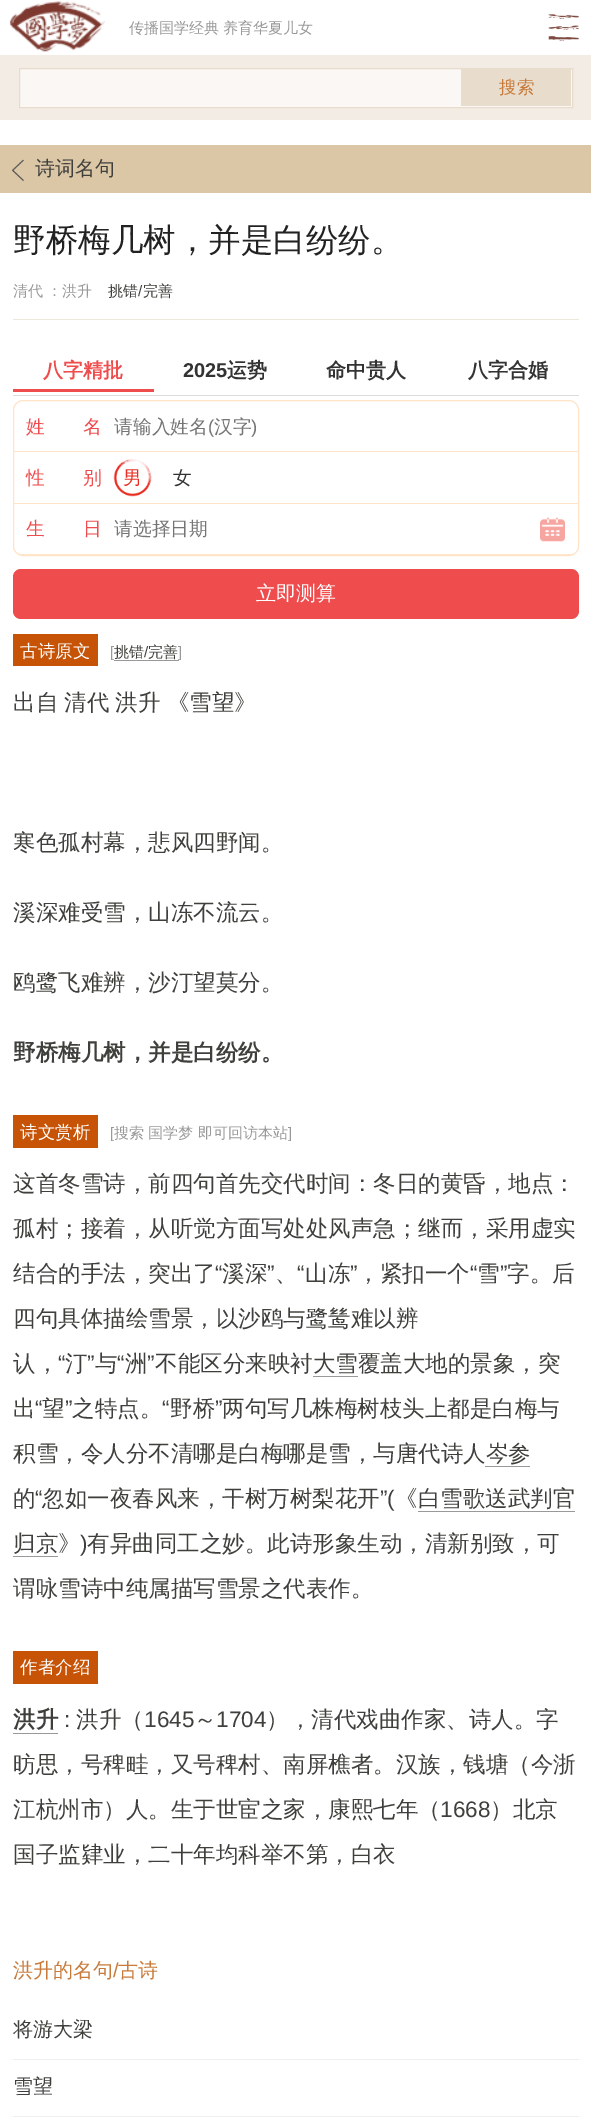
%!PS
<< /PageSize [591 2120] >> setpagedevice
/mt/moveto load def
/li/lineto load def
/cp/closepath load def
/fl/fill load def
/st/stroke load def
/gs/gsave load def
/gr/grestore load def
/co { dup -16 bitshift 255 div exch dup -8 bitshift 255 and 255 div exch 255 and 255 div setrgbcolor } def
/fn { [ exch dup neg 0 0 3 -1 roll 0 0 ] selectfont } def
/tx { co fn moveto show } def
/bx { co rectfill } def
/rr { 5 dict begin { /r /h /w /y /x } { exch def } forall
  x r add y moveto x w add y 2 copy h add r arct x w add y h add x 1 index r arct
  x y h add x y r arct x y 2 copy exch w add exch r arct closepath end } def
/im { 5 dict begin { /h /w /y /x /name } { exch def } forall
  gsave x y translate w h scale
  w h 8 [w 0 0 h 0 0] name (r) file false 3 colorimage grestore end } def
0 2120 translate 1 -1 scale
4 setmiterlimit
0 0 591 2120 16#FFFFFF bx
(media/1.raw) 9 1 96 51 im
(media/2.raw) 548 14 31 27 im
0 55 591 65 16#F3ECE5 bx
16#FAF7F5 co
19.5 68.5 mt 572.5 68.5 li 572.5 107.5 li 19.5 107.5 li cp gs fl gr
16#E8DCCC co
st
461 69 110 37 16#E8DCCC bx
0 145 591 48 16#DBC7A6 bx
(media/3.raw) 12 159 12 22 im
13 319 566 1 16#EBE8DB bx
13 395 566 1 16#DDDDDD bx
13 389 141 3 16#EF4C4D bx
16#FFE4C8 co
13.5 400.5 565 155 9.5 rr st
14 451 564 1 16#FFE4C8 bx
14 503 564 1 16#FFE4C8 bx
(media/4.raw) 113 459 39 38 im
gs
14 401 564 154 9 rr clip newpath
14 554 564 1 16#FFE4C8 bx
gr
(media/5.raw) 540 517 25 25 im
16#EF4C4D co
13 569 566 50 8 rr fl
13 634 85 32 16#C65306 bx
114 660 65 1 16#999999 bx
13 1115 85 33 16#C65306 bx
313 1376 45 1 16#999999 bx
485 1466 45 1 16#999999 bx
418 1511 157 1 16#999999 bx
13 1556 45 1 16#999999 bx
13 1651 85 33 16#C65306 bx
13 1733 45 1 16#999999 bx
13 2059 566 1 16#EEEEEE bx
13 2116 566 1 16#EEEEEE bx
(传播国学经典 养育华夏儿女) 129 33 /WenQuanYiZenHei-Medium 15 16#999999 tx
(搜索) 499 93 /WenQuanYiZenHei-Medium 17.5 16#C77A3A tx
(诗词名句) 35 175 /WenQuanYiZenHei-Medium 20 16#3F3F3C tx
(野桥梅几树，并是白纷纷。) 13 251 /WenQuanYiZenHei-Medium 32.5 16#222222 tx
(清代 ：洪升) 13 296 /WenQuanYiZenHei-Medium 15 16#999999 tx
(挑错) 108 296 /WenQuanYiZenHei-Medium 15 16#3F3F3C tx
(/) 138 296 /LiberationSans-Regular 15 16#3F3F3C tx
(完善) 143 296 /WenQuanYiZenHei-Medium 15 16#3F3F3C tx
(八字精批) 43 377 /WenQuanYiZenHei-Bold 20 16#EF4C4D tx
(2025) 183 377 /LiberationSans-Bold 20 16#333333 tx
(运势) 227 377 /WenQuanYiZenHei-Bold 20 16#333333 tx
(命中贵人) 326 377 /WenQuanYiZenHei-Bold 20 16#333333 tx
(八字合婚) 468 377 /WenQuanYiZenHei-Bold 20 16#333333 tx
(姓) 26 433 /WenQuanYiZenHei-Medium 18.75 16#EF4C4D tx
(名) 83 433 /WenQuanYiZenHei-Medium 18.75 16#EF4C4D tx
(请输入姓名) 114 433 /WenQuanYiZenHei-Medium 18.75 16#757575 tx
(\() 208 433 /LiberationSans-Regular 18.75 16#757575 tx
(汉字) 214 433 /WenQuanYiZenHei-Medium 18.75 16#757575 tx
(\)) 251 433 /LiberationSans-Regular 18.75 16#757575 tx
(性) 26 484 /WenQuanYiZenHei-Medium 18.75 16#EF4C4D tx
(别) 83 484 /WenQuanYiZenHei-Medium 18.75 16#EF4C4D tx
(男) 123 484 /WenQuanYiZenHei-Medium 18.75 16#E82E23 tx
(女) 173 484 /WenQuanYiZenHei-Medium 18.75 16#333333 tx
(生) 26 535 /WenQuanYiZenHei-Medium 18.75 16#EF4C4D tx
(日) 83 535 /WenQuanYiZenHei-Medium 18.75 16#EF4C4D tx
(请选择日期) 114 535 /WenQuanYiZenHei-Medium 18.75 16#757575 tx
(立即测算) 256 600 /WenQuanYiZenHei-Medium 20 16#FFFFFF tx
(古诗原文) 20 657 /WenQuanYiZenHei-Medium 17.5 16#FFFFFF tx
([) 110 657 /LiberationSans-Regular 15 16#999999 tx
(挑错) 114 657 /WenQuanYiZenHei-Medium 15 16#3F3F3C tx
(/) 144 657 /LiberationSans-Regular 15 16#3F3F3C tx
(完善) 148 657 /WenQuanYiZenHei-Medium 15 16#3F3F3C tx
(]) 178 657 /LiberationSans-Regular 15 16#999999 tx
/WenQuanYiZenHei-Medium 22.5 fn
16#3F3F3C co
13 710 mt -.5 0 32 (出自 清代 洪升 《雪望》) widthshow
(寒色孤村幕，悲风四野闻。) 13 850 /WenQuanYiZenHei-Medium 22.5 16#3F3F3C tx
(溪深难受雪，山冻不流云。) 13 920 /WenQuanYiZenHei-Medium 22.5 16#3F3F3C tx
(鸥鹭飞难辨，沙汀望莫分。) 13 990 /WenQuanYiZenHei-Medium 22.5 16#3F3F3C tx
(野桥梅几树，并是白纷纷。) 13 1060 /WenQuanYiZenHei-Bold 22.5 16#3F3F3C tx
(诗文赏析) 20 1138 /WenQuanYiZenHei-Medium 17.5 16#FFFFFF tx
([) 110 1138 /LiberationSans-Regular 15 16#999999 tx
(搜索 国学梦 即可回访本站) 114 1138 /WenQuanYiZenHei-Medium 15 16#999999 tx
(]) 288 1138 /LiberationSans-Regular 15 16#999999 tx
(这首冬雪诗，前四句首先交代时间：冬日的黄昏，地点：) 13 1191 /WenQuanYiZenHei-Medium 22.5 16#3F3F3C tx
(孤村；接着，从听觉方面写处处风声急；继而，采用虚实) 13 1236 /WenQuanYiZenHei-Medium 22.5 16#3F3F3C tx
(结合的手法，突出了) 13 1281 /WenQuanYiZenHei-Medium 22.5 16#3F3F3C tx
(“) 215 1281 /LiberationSans-Regular 22.5 16#3F3F3C tx
(溪深) 222 1281 /WenQuanYiZenHei-Medium 22.5 16#3F3F3C tx
(”) 267 1281 /LiberationSans-Regular 22.5 16#3F3F3C tx
(“) 297 1281 /LiberationSans-Regular 22.5 16#3F3F3C tx
(山冻) 305 1281 /WenQuanYiZenHei-Medium 22.5 16#3F3F3C tx
(”) 350 1281 /LiberationSans-Regular 22.5 16#3F3F3C tx
(，紧扣一个) 357 1281 /WenQuanYiZenHei-Medium 22.5 16#3F3F3C tx
(“) 470 1281 /LiberationSans-Regular 22.5 16#3F3F3C tx
(雪) 477 1281 /WenQuanYiZenHei-Medium 22.5 16#3F3F3C tx
(”) 500 1281 /LiberationSans-Regular 22.5 16#3F3F3C tx
(字。后) 507 1281 /WenQuanYiZenHei-Medium 22.5 16#3F3F3C tx
(、) 275 1281 /WenQuanYiZenHei-Medium 22.5 16#3F3F3C tx
(四句具体描绘雪景，以沙鸥与鹭鸶难以辨) 13 1326 /WenQuanYiZenHei-Medium 22.5 16#3F3F3C tx
(认，) 13 1371 /WenQuanYiZenHei-Medium 22.5 16#3F3F3C tx
(“) 58 1371 /LiberationSans-Regular 22.5 16#3F3F3C tx
(汀) 65 1371 /WenQuanYiZenHei-Medium 22.5 16#3F3F3C tx
(”) 87 1371 /LiberationSans-Regular 22.5 16#3F3F3C tx
(与) 95 1371 /WenQuanYiZenHei-Medium 22.5 16#3F3F3C tx
(“) 117 1371 /LiberationSans-Regular 22.5 16#3F3F3C tx
(洲) 125 1371 /WenQuanYiZenHei-Medium 22.5 16#3F3F3C tx
(”) 147 1371 /LiberationSans-Regular 22.5 16#3F3F3C tx
(不能区分来映衬大雪覆盖大地的景象，突) 155 1371 /WenQuanYiZenHei-Medium 22.5 16#3F3F3C tx
(出) 13 1416 /WenQuanYiZenHei-Medium 22.5 16#3F3F3C tx
(“) 35 1416 /LiberationSans-Regular 22.5 16#3F3F3C tx
(望) 42 1416 /WenQuanYiZenHei-Medium 22.5 16#3F3F3C tx
(”) 65 1416 /LiberationSans-Regular 22.5 16#3F3F3C tx
(之特点。) 72 1416 /WenQuanYiZenHei-Medium 22.5 16#3F3F3C tx
(“) 162 1416 /LiberationSans-Regular 22.5 16#3F3F3C tx
(野桥) 170 1416 /WenQuanYiZenHei-Medium 22.5 16#3F3F3C tx
(”) 215 1416 /LiberationSans-Regular 22.5 16#3F3F3C tx
(两句写几株梅树枝头上都是白梅与) 222 1416 /WenQuanYiZenHei-Medium 22.5 16#3F3F3C tx
(积雪，令人分不清哪是白梅哪是雪，与唐代诗人岑参) 13 1461 /WenQuanYiZenHei-Medium 22.5 16#3F3F3C tx
(的) 13 1506 /WenQuanYiZenHei-Medium 22.5 16#3F3F3C tx
(“) 35 1506 /LiberationSans-Regular 22.5 16#3F3F3C tx
(忽如一夜春风来，干树万树梨花开) 42 1506 /WenQuanYiZenHei-Medium 22.5 16#3F3F3C tx
(”\() 380 1506 /LiberationSans-Regular 22.5 16#3F3F3C tx
(《白雪歌送武判官) 395 1506 /WenQuanYiZenHei-Medium 22.5 16#3F3F3C tx
(归京》) 13 1551 /WenQuanYiZenHei-Medium 22.5 16#3F3F3C tx
(\)) 80 1551 /LiberationSans-Regular 22.5 16#3F3F3C tx
(有异曲同工之妙。此诗形象生动，清新别致，可) 87 1551 /WenQuanYiZenHei-Medium 22.5 16#3F3F3C tx
(谓咏雪诗中纯属描写雪景之代表作。) 13 1596 /WenQuanYiZenHei-Medium 22.5 16#3F3F3C tx
(作者介绍) 20 1673 /WenQuanYiZenHei-Medium 17.5 16#FFFFFF tx
(洪升) 13 1727 /WenQuanYiZenHei-Bold 22.5 16#3F3F3C tx
(:) 64 1727 /LiberationSans-Regular 22.5 16#3F3F3C tx
(洪升（) 76 1727 /WenQuanYiZenHei-Medium 22.5 16#3F3F3C tx
(1645) 144 1727 /LiberationSans-Regular 22.5 16#3F3F3C tx
(～) 194 1727 /WenQuanYiZenHei-Medium 22.5 16#3F3F3C tx
(1704) 216 1727 /LiberationSans-Regular 22.5 16#3F3F3C tx
(），清代戏曲作家、诗人。字) 266 1727 /WenQuanYiZenHei-Medium 22.5 16#3F3F3C tx
(昉思，号稗畦，又号稗村、南屏樵者。汉族，钱塘（今浙) 13 1772 /WenQuanYiZenHei-Medium 22.5 16#3F3F3C tx
(江杭州市）人。生于世宦之家，康熙七年（) 13 1817 /WenQuanYiZenHei-Medium 22.5 16#3F3F3C tx
(1668) 440 1817 /LiberationSans-Regular 22.5 16#3F3F3C tx
(）北京) 490 1817 /WenQuanYiZenHei-Medium 22.5 16#3F3F3C tx
(国子监肄业，二十年均科举不第，白衣) 13 1862 /WenQuanYiZenHei-Medium 22.5 16#3F3F3C tx
(洪升的名句) 13 1977 /WenQuanYiZenHei-Medium 20 16#C77A3A tx
(/) 113 1977 /LiberationSans-Regular 20 16#C77A3A tx
(古诗) 118 1977 /WenQuanYiZenHei-Medium 20 16#C77A3A tx
(将游大梁) 13 2036 /WenQuanYiZenHei-Medium 20 16#3F3F3C tx
(雪望) 13 2093 /WenQuanYiZenHei-Medium 20 16#3F3F3C tx
showpage
